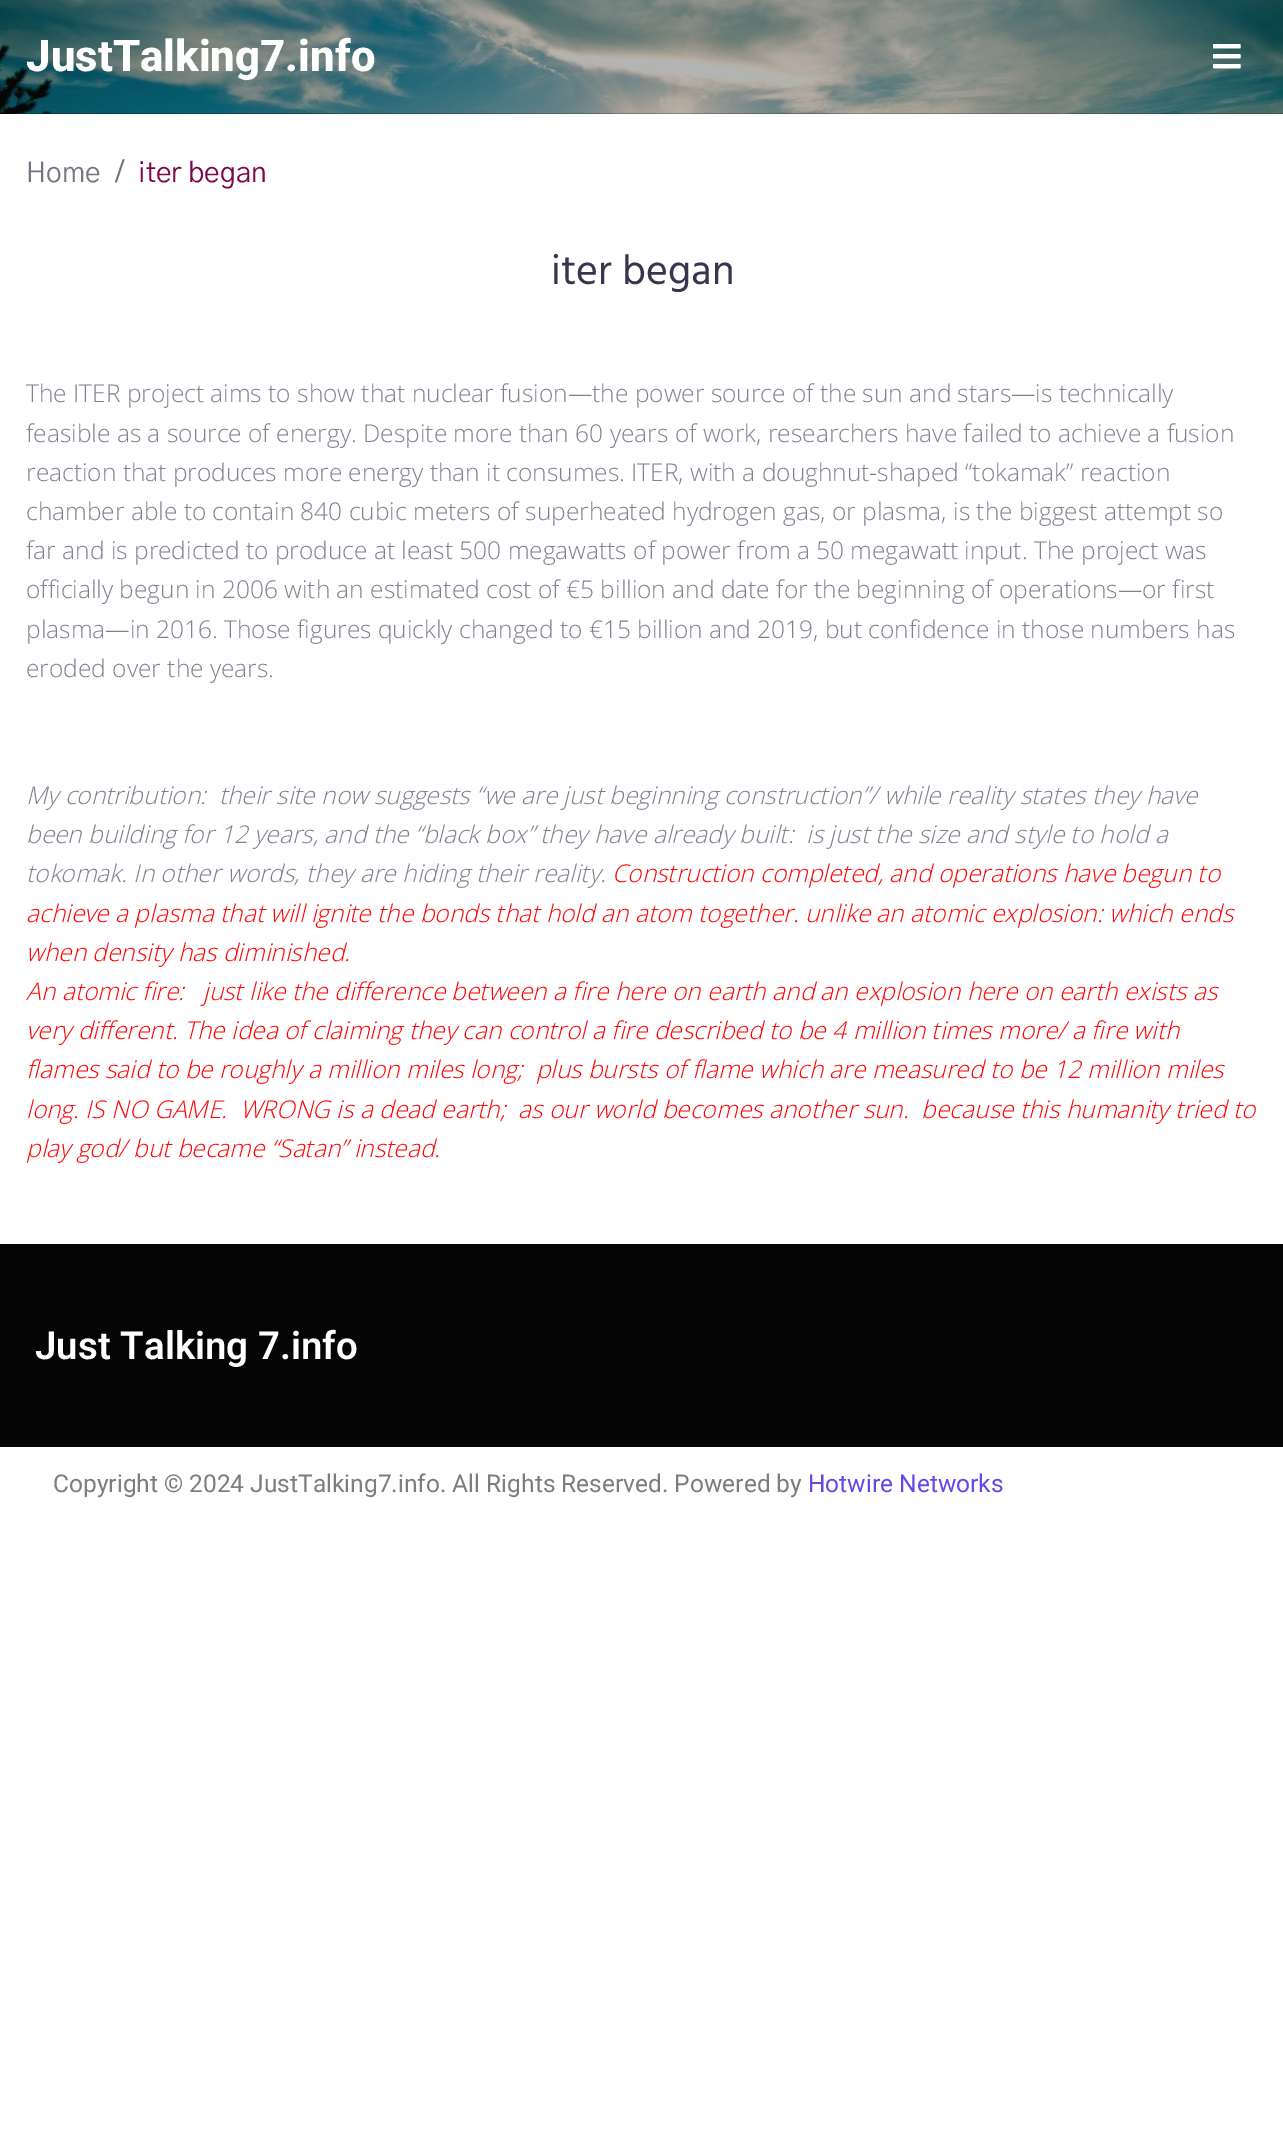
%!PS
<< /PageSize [1283 2143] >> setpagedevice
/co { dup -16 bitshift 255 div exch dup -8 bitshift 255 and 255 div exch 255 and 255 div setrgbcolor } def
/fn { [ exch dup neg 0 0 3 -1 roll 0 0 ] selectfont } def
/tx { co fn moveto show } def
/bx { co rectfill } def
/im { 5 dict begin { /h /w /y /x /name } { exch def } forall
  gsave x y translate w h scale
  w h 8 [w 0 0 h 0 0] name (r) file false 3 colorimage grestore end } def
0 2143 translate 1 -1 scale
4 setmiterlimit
0 0 1283 2143 16#FFFFFF bx
(media/1.raw) 0 0 1283 114 im
(media/2.raw) 1213 44 28 25 im
0 1244 1283 203 16#050505 bx
(JustTalking7.info) 26 71 /Roboto-ExtraBold 43.75 16#FFFFFF tx
(Home) 26 182 /GothicA1-Regular 28 16#727680 tx
(/) 115 181 /GothicA1-Regular 28 16#727680 tx
(iter began) 138 182 /GothicA1-Regular 28 16#7D054A tx
(iter began) 551 284 /Hind-Regular 42 16#38354F tx
(The ITER project aims to show that nuclear fusion—the power source of the sun and stars—is technically) 26 402 /OpenSans-Light 24.5 16#828090 tx
(feasible as a source of energy. Despite more than 60 years of work, researchers have failed to achieve a fusion) 26 442 /OpenSans-Light 24.5 16#828090 tx
(reaction that produces more energy than it consumes. ITER, with a doughnut-shaped “tokamak” reaction) 26 481 /OpenSans-Light 24.5 16#828090 tx
(chamber able to contain 840 cubic meters of superheated hydrogen gas, or plasma, is the biggest attempt so) 26 520 /OpenSans-Light 24.5 16#828090 tx
(far and is predicted to produce at least 500 megawatts of power from a 50 megawatt input. The project was) 26 559 /OpenSans-Light 24.5 16#828090 tx
(officially begun in 2006 with an estimated cost of €5 billion and date for the beginning of operations—or first) 26 598 /OpenSans-Light 24.5 16#828090 tx
(plasma—in 2016. Those figures quickly changed to €15 billion and 2019, but confidence in those numbers has) 26 638 /OpenSans-Light 24.5 16#828090 tx
(eroded over the years.) 26 677 /OpenSans-Light 24.5 16#828090 tx
(My contribution:  their site now suggests “we are just beginning construction”/ while reality states they have) 26 804 /OpenSans-LightItalic 24.5 16#828090 tx
(been building for 12 years, and the “black box” they have already built:  is just the size and style to hold a) 26 843 /OpenSans-LightItalic 24.5 16#828090 tx
(tokomak. In other words, they are hiding their reality.) 26 882 /OpenSans-LightItalic 24.5 16#828090 tx
(Construction completed, and operations have begun to) 612 882 /OpenSans-LightItalic 24.5 16#FF0505 tx
(achieve a plasma that will ignite the bonds that hold an atom together. unlike an atomic explosion: which ends) 26 922 /OpenSans-LightItalic 24.5 16#FF0505 tx
(when density has diminished.) 26 961 /OpenSans-LightItalic 24.5 16#FF0505 tx
(An atomic fire:   just like the difference between a fire here on earth and an explosion here on earth exists as) 26 1000 /OpenSans-LightItalic 24.5 16#FF0505 tx
(very different. The idea of claiming they can control a fire described to be 4 million times more/ a fire with) 26 1039 /OpenSans-LightItalic 24.5 16#FF0505 tx
(flames said to be roughly a million miles long;  plus bursts of flame which are measured to be 12 million miles) 26 1078 /OpenSans-LightItalic 24.5 16#FF0505 tx
(long. IS NO GAME.  WRONG is a dead earth;  as our world becomes another sun.  because this humanity tried to) 26 1118 /OpenSans-LightItalic 24.5 16#FF0505 tx
(play god/ but became “Satan” instead.) 26 1157 /OpenSans-LightItalic 24.5 16#FF0505 tx
(Just Talking 7.info) 35 1359 /Roboto-SemiBold 38.5 16#FFFFFF tx
(Copyright © 2024 JustTalking7.info. All Rights Reserved. Powered by) 53 1492 /Roboto-Regular 24.5 16#7D7D7D tx
(Hotwire Networks) 808 1492 /Roboto-Regular 24.5 16#6249EA tx
showpage
